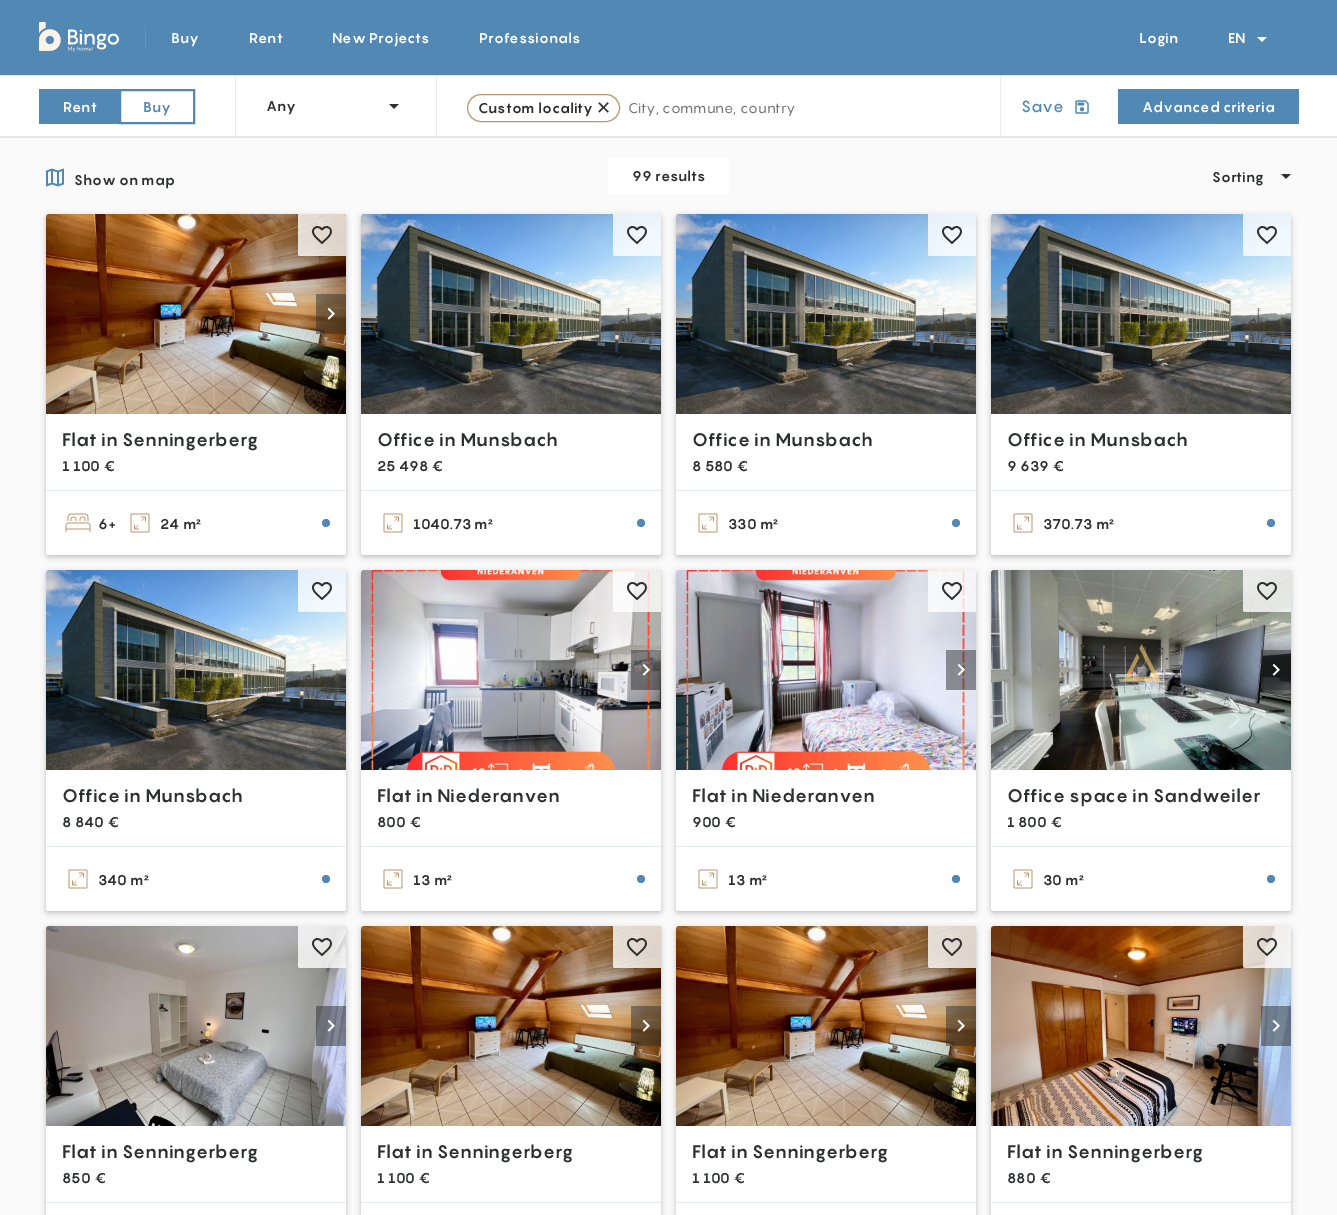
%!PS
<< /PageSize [1337 1215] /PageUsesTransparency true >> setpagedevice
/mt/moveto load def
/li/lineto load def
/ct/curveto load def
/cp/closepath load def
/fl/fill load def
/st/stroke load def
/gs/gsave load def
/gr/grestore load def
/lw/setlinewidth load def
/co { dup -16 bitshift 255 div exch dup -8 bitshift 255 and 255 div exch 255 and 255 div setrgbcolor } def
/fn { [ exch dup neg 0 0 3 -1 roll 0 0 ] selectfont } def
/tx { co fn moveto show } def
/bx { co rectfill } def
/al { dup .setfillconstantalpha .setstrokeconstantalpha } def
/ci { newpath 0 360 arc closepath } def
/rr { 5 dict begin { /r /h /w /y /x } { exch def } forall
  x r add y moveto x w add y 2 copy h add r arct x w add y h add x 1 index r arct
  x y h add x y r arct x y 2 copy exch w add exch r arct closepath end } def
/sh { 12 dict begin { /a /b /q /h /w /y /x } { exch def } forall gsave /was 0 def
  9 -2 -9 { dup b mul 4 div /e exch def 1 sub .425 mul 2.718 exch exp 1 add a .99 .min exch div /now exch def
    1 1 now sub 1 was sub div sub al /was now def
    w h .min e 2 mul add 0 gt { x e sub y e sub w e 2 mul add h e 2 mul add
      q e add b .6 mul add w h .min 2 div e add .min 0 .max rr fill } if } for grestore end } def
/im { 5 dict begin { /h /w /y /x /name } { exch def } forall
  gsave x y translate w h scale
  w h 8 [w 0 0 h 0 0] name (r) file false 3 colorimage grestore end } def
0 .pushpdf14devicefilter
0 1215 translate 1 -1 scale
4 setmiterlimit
0 0 1337 1215 16#FAFAFA bx
0 0 1337 75 16#5188B4 bx
(media/1.raw) 39 22 80 30 im
145 26 1 24 16#6294BC bx
(media/2.raw) 1257 37 10 5 im
0 136 1337 2 16#E6E6E6 bx
0 76 1337 60 16#FFFFFF bx
0 75 1337 1 16#E5EBEB bx
39 89 80 35 16#5188B4 bx
2 lw
120 90 74 33 rectstroke
235 76 1 60 16#EAEBEB bx
(media/3.raw) 389 104 10 5 im
436 76 1 60 16#EAEBEB bx
16#BD946B co
1 lw
467.5 94.5 152 27 13.5 rr st
1000 76 1 60 16#EAEBEB bx
(media/4.raw) 1075 100 14 14 im
1118 89 181 35 16#5188B4 bx
(media/5.raw) 46 168 18 19 im
608 158 121 36 16#FFFFFF bx
(media/6.raw) 1281 174 10 5 im
16#2D2F30 co
46 216 300 341 3 3 .3 sh
16#FFFFFF co
46 214 300 341 3 rr fl
(media/7.raw) 46 214 300 200 im
0.5 al
316 294 30 40 16#2D2F30 bx
1 al
(media/8.raw) 327 307 8 13 im
0.8 al
16#FFFFFF co
298 214 mt 343 214 li 344.5 214 346 215.5 346 217 ct 346 256 li 300 256 li 299 256 298 255 298 254 ct cp fl
1 al
(media/9.raw) 312 226 20 19 im
46 490 mt 346 490 li 346 552 li 346 553.5 344.5 555 343 555 ct 49 555 li 47.5 555 46 553.5 46 552 ct cp fl
46 490 300 1 16#E5EBEB bx
(media/10.raw) 65 513 26 19 im
(media/11.raw) 130 513 20 20 im
16#5188B4 co
326 523 4 ci fl
16#2D2F30 co
361 216 300 341 3 3 .3 sh
16#FFFFFF co
361 214 300 341 3 rr fl
(media/12.raw) 361 214 300 200 im
0.8 al
613 214 mt 658 214 li 659.5 214 661 215.5 661 217 ct 661 256 li 615 256 li 614 256 613 255 613 254 ct cp fl
1 al
(media/13.raw) 627 226 20 19 im
361 490 mt 661 490 li 661 552 li 661 553.5 659.5 555 658 555 ct 364 555 li 362.5 555 361 553.5 361 552 ct cp fl
361 490 300 1 16#E5EBEB bx
(media/11.raw) 383 513 20 20 im
16#5188B4 co
641 523 4 ci fl
16#2D2F30 co
676 216 300 341 3 3 .3 sh
16#FFFFFF co
676 214 300 341 3 rr fl
(media/12.raw) 676 214 300 200 im
0.8 al
928 214 mt 973 214 li 974.5 214 976 215.5 976 217 ct 976 256 li 930 256 li 929 256 928 255 928 254 ct cp fl
1 al
(media/13.raw) 942 226 20 19 im
676 490 mt 976 490 li 976 552 li 976 553.5 974.5 555 973 555 ct 679 555 li 677.5 555 676 553.5 676 552 ct cp fl
676 490 300 1 16#E5EBEB bx
(media/11.raw) 698 513 20 20 im
16#5188B4 co
956 523 4 ci fl
16#2D2F30 co
991 216 300 341 3 3 .3 sh
16#FFFFFF co
991 214 300 341 3 rr fl
(media/12.raw) 991 214 300 200 im
0.8 al
1243 214 mt 1288 214 li 1289.5 214 1291 215.5 1291 217 ct 1291 256 li 1245 256 li 1244 256 1243 255 1243 254 ct cp fl
1 al
(media/14.raw) 1257 226 20 19 im
991 490 mt 1291 490 li 1291 552 li 1291 553.5 1289.5 555 1288 555 ct 994 555 li 992.5 555 991 553.5 991 552 ct cp fl
991 490 300 1 16#E5EBEB bx
(media/11.raw) 1013 513 20 20 im
16#5188B4 co
1271 523 4 ci fl
16#2D2F30 co
46 572 300 341 3 3 .3 sh
16#FFFFFF co
46 570 300 341 3 rr fl
(media/12.raw) 46 570 300 200 im
0.8 al
298 570 mt 343 570 li 344.5 570 346 571.5 346 573 ct 346 612 li 300 612 li 299 612 298 611 298 610 ct cp fl
1 al
(media/13.raw) 312 582 20 19 im
46 846 mt 346 846 li 346 908 li 346 909.5 344.5 911 343 911 ct 49 911 li 47.5 911 46 909.5 46 908 ct cp fl
46 846 300 1 16#E5EBEB bx
(media/11.raw) 68 869 20 20 im
16#5188B4 co
326 879 4 ci fl
16#2D2F30 co
361 572 300 341 3 3 .3 sh
16#FFFFFF co
361 570 300 341 3 rr fl
(media/15.raw) 361 570 300 200 im
0.5 al
631 650 30 40 16#2D2F30 bx
1 al
(media/16.raw) 642 664 8 12 im
0.8 al
16#FFFFFF co
613 570 mt 658 570 li 659.5 570 661 571.5 661 573 ct 661 612 li 615 612 li 614 612 613 611 613 610 ct cp fl
1 al
(media/17.raw) 627 582 20 19 im
361 846 mt 661 846 li 661 908 li 661 909.5 659.5 911 658 911 ct 364 911 li 362.5 911 361 909.5 361 908 ct cp fl
361 846 300 1 16#E5EBEB bx
(media/11.raw) 383 869 20 20 im
16#5188B4 co
641 879 4 ci fl
16#2D2F30 co
676 572 300 341 3 3 .3 sh
16#FFFFFF co
676 570 300 341 3 rr fl
(media/18.raw) 676 570 300 200 im
0.5 al
946 650 30 40 16#2D2F30 bx
1 al
(media/19.raw) 957 664 8 12 im
0.8 al
16#FFFFFF co
928 570 mt 973 570 li 974.5 570 976 571.5 976 573 ct 976 612 li 930 612 li 929 612 928 611 928 610 ct cp fl
1 al
(media/20.raw) 942 582 20 19 im
676 846 mt 976 846 li 976 908 li 976 909.5 974.5 911 973 911 ct 679 911 li 677.5 911 676 909.5 676 908 ct cp fl
676 846 300 1 16#E5EBEB bx
(media/11.raw) 698 869 20 20 im
16#5188B4 co
956 879 4 ci fl
16#2D2F30 co
991 572 300 341 3 3 .3 sh
16#FFFFFF co
991 570 300 341 3 rr fl
(media/21.raw) 991 570 300 200 im
0.5 al
1261 650 30 40 16#2D2F30 bx
1 al
(media/22.raw) 1272 664 8 12 im
0.8 al
16#FFFFFF co
1243 570 mt 1288 570 li 1289.5 570 1291 571.5 1291 573 ct 1291 612 li 1245 612 li 1244 612 1243 611 1243 610 ct cp fl
1 al
(media/23.raw) 1257 582 20 19 im
991 846 mt 1291 846 li 1291 908 li 1291 909.5 1289.5 911 1288 911 ct 994 911 li 992.5 911 991 909.5 991 908 ct cp fl
991 846 300 1 16#E5EBEB bx
(media/11.raw) 1013 869 20 20 im
16#5188B4 co
1271 879 4 ci fl
16#2D2F30 co
46 928 300 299 3 3 .3 sh
16#FFFFFF co
46 926 300 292 3 rr fl
(media/24.raw) 46 926 300 200 im
0.5 al
316 1006 30 40 16#2D2F30 bx
1 al
(media/25.raw) 327 1019 8 13 im
0.8 al
16#FFFFFF co
298 926 mt 343 926 li 344.5 926 346 927.5 346 929 ct 346 968 li 300 968 li 299 968 298 967 298 966 ct cp fl
1 al
(media/26.raw) 312 938 20 19 im
46 1202 300 1 16#E5EBEB bx
16#2D2F30 co
361 928 300 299 3 3 .3 sh
16#FFFFFF co
361 926 300 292 3 rr fl
(media/7.raw) 361 926 300 200 im
0.5 al
631 1006 30 40 16#2D2F30 bx
1 al
(media/8.raw) 642 1019 8 13 im
0.8 al
16#FFFFFF co
613 926 mt 658 926 li 659.5 926 661 927.5 661 929 ct 661 968 li 615 968 li 614 968 613 967 613 966 ct cp fl
1 al
(media/9.raw) 627 938 20 19 im
361 1202 300 1 16#E5EBEB bx
16#2D2F30 co
676 928 300 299 3 3 .3 sh
16#FFFFFF co
676 926 300 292 3 rr fl
(media/7.raw) 676 926 300 200 im
0.5 al
946 1006 30 40 16#2D2F30 bx
1 al
(media/8.raw) 957 1019 8 13 im
0.8 al
16#FFFFFF co
928 926 mt 973 926 li 974.5 926 976 927.5 976 929 ct 976 968 li 930 968 li 929 968 928 967 928 966 ct cp fl
1 al
(media/9.raw) 942 938 20 19 im
676 1202 300 1 16#E5EBEB bx
16#2D2F30 co
991 928 300 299 3 3 .3 sh
16#FFFFFF co
991 926 300 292 3 rr fl
(media/27.raw) 991 926 300 200 im
0.5 al
1261 1006 30 40 16#2D2F30 bx
1 al
(media/28.raw) 1272 1019 8 13 im
0.8 al
16#FFFFFF co
1243 926 mt 1288 926 li 1289.5 926 1291 927.5 1291 929 ct 1291 968 li 1245 968 li 1244 968 1243 967 1243 966 ct cp fl
1 al
(media/29.raw) 1257 938 20 19 im
991 1202 300 1 16#E5EBEB bx
(Buy) 171 43 /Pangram-Bold 14 16#FFFFFF tx
(Rent) 249 43 /Pangram-Bold 14 16#FFFFFF tx
(New Projects) 332 43 /Pangram-Bold 14 16#FFFFFF tx
(Professionals) 479 43 /Pangram-Bold 14 16#FFFFFF tx
(Login) 1139 43 /Pangram-Bold 14 16#FFFFFF tx
(EN) 1228 43 /Pangram-Bold 14 16#FFFFFF tx
(Rent) 63 112 /Pangram-Bold 14 16#FFFFFF tx
(Buy) 143 112 /Pangram-Bold 14 16#5188B4 tx
(Any) 266 111 /Pangram-Bold 14 16#2D2F30 tx
(Custom locality) 478 113 /Pangram-Bold 14 16#2D2F30 tx
(✕) 596 114 /DejaVuSans-Regular 18 16#2D2F30 tx
gs
628 99 200 17 rectclip
(City, commune, country) 628 113 /Pangram-Regular 14 16#757575 tx
gr
(Save) 1021 112 /Pangram-Medium 16 16#5188B4 tx
(Advanced criteria) 1142 112 /Pangram-Bold 14 16#FFFFFF tx
(Show on map) 74 185 /Pangram-Bold 14 16#2D2F30 tx
(99 results) 632 181 /Pangram-Bold 14 16#2D2F30 tx
(Sorting) 1212 182 /Pangram-Bold 14 16#2D2F30 tx
(Flat in Senningerberg) 62 446 /Pangram-Bold 18 16#2D2F30 tx
(1 100 €) 62 471 /Pangram-Bold 14 16#2D2F30 tx
(6+) 98 529 /Pangram-Bold 14 16#2D2F30 tx
(24 m) 160 529 /Pangram-Bold 14 16#2D2F30 tx
(²) 196 529 /LiberationSans-Bold 14 16#2D2F30 tx
(Office in Munsbach) 377 446 /Pangram-Bold 18 16#2D2F30 tx
(25 498 €) 377 471 /Pangram-Bold 14 16#2D2F30 tx
(1040.73 m) 413 529 /Pangram-Bold 14 16#2D2F30 tx
(²) 488 529 /LiberationSans-Bold 14 16#2D2F30 tx
(Office in Munsbach) 692 446 /Pangram-Bold 18 16#2D2F30 tx
(8 580 €) 692 471 /Pangram-Bold 14 16#2D2F30 tx
(330 m) 728 529 /Pangram-Bold 14 16#2D2F30 tx
(²) 773 529 /LiberationSans-Bold 14 16#2D2F30 tx
(Office in Munsbach) 1007 446 /Pangram-Bold 18 16#2D2F30 tx
(9 639 €) 1007 471 /Pangram-Bold 14 16#2D2F30 tx
(370.73 m) 1043 529 /Pangram-Bold 14 16#2D2F30 tx
(²) 1109 529 /LiberationSans-Bold 14 16#2D2F30 tx
(Office in Munsbach) 62 802 /Pangram-Bold 18 16#2D2F30 tx
(8 840 €) 62 827 /Pangram-Bold 14 16#2D2F30 tx
(340 m) 98 885 /Pangram-Bold 14 16#2D2F30 tx
(²) 144 885 /LiberationSans-Bold 14 16#2D2F30 tx
(Flat in Niederanven) 377 802 /Pangram-Bold 18 16#2D2F30 tx
(800 €) 377 827 /Pangram-Bold 14 16#2D2F30 tx
(13 m) 413 885 /Pangram-Bold 14 16#2D2F30 tx
(²) 447 885 /LiberationSans-Bold 14 16#2D2F30 tx
(Flat in Niederanven) 692 802 /Pangram-Bold 18 16#2D2F30 tx
(900 €) 692 827 /Pangram-Bold 14 16#2D2F30 tx
(13 m) 728 885 /Pangram-Bold 14 16#2D2F30 tx
(²) 762 885 /LiberationSans-Bold 14 16#2D2F30 tx
(Office space in Sandweiler) 1007 802 /Pangram-Bold 18 16#2D2F30 tx
(1 800 €) 1007 827 /Pangram-Bold 14 16#2D2F30 tx
(30 m) 1043 885 /Pangram-Bold 14 16#2D2F30 tx
(²) 1079 885 /LiberationSans-Bold 14 16#2D2F30 tx
(Flat in Senningerberg) 62 1158 /Pangram-Bold 18 16#2D2F30 tx
(850 €) 62 1183 /Pangram-Bold 14 16#2D2F30 tx
(Flat in Senningerberg) 377 1158 /Pangram-Bold 18 16#2D2F30 tx
(1 100 €) 377 1183 /Pangram-Bold 14 16#2D2F30 tx
(Flat in Senningerberg) 692 1158 /Pangram-Bold 18 16#2D2F30 tx
(1 100 €) 692 1183 /Pangram-Bold 14 16#2D2F30 tx
(Flat in Senningerberg) 1007 1158 /Pangram-Bold 18 16#2D2F30 tx
(880 €) 1007 1183 /Pangram-Bold 14 16#2D2F30 tx
.poppdf14devicefilter showpage
